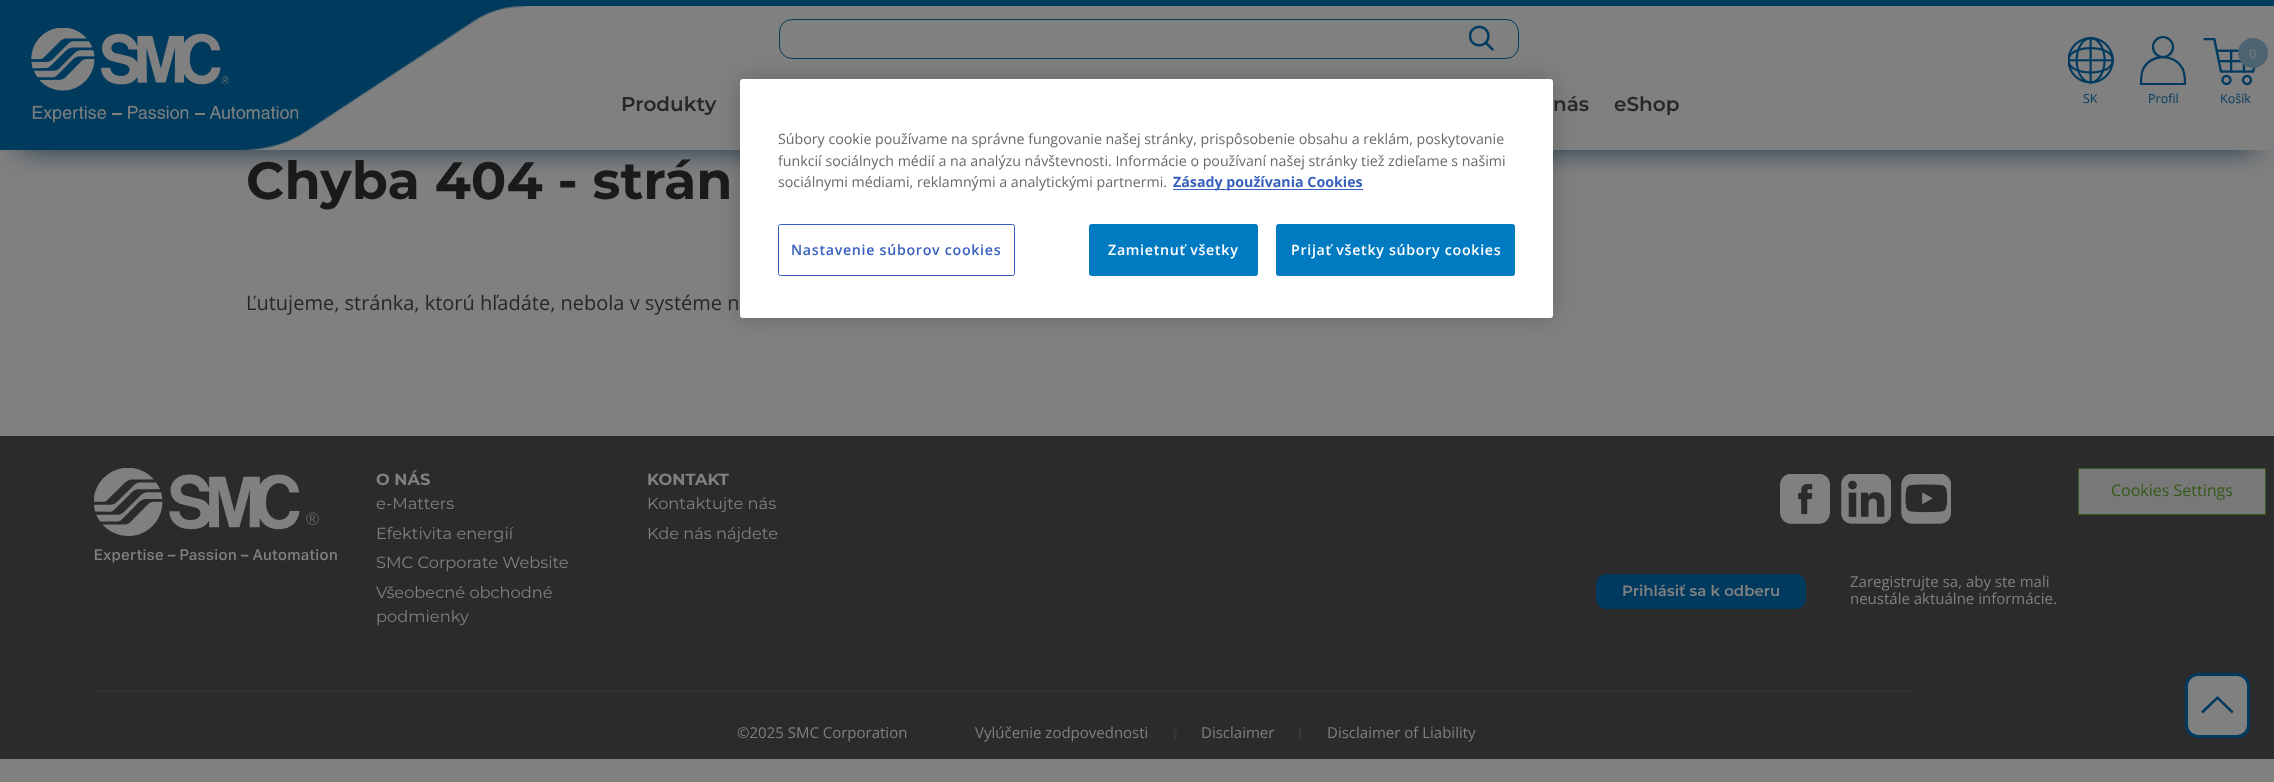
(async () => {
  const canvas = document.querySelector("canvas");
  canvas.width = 2274;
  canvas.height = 782;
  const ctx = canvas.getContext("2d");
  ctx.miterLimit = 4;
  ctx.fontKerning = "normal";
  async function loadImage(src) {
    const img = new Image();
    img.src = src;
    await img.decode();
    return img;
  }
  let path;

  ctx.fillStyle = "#808080";
  ctx.fillRect(0, 0, 2274, 782);
  ctx.save();
  ctx.beginPath();
  ctx.rect(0, 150, 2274, 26);
  ctx.clip();
  ctx.fillStyle = "rgba(0, 34, 56, 0.81)";
  ctx.filter = "blur(14px)";
  ctx.beginPath();
  ctx.rect(20, 39, 2235, 110);
  ctx.fill();
  ctx.filter = "none";
  ctx.restore();
  ctx.drawImage(await loadImage("img/1.png"), 0, 6, 526, 144);
  ctx.fillStyle = "#003a5f";
  ctx.fillRect(0, 0, 2274, 6);
  ctx.drawImage(await loadImage("img/2.png"), 31, 28, 268, 95);
  ctx.beginPath();
  ctx.roundRect(779.5, 19.5, 739, 39, 12.5);
  ctx.strokeStyle = "#003a5f";
  ctx.stroke();
  ctx.drawImage(await loadImage("img/3.png"), 1469, 25, 25, 26);
  ctx.drawImage(await loadImage("img/4.png"), 2068, 37, 46, 47);
  ctx.save();
  ctx.beginPath();
  ctx.rect(2140, 31, 46, 59);
  ctx.clip();
  path = new Path2D("M2185 84C2185 78.5 2185 73.5 2182.5 68.5C2174 52.5 2149.5 53.5 2142.5 70.5C2141 75 2141 79.5 2141 84Z");
  ctx.lineWidth = 2.2;
  ctx.lineCap = "round";
  ctx.lineJoin = "round";
  ctx.stroke(path);
  ctx.restore();
  ctx.beginPath();
  ctx.arc(2163, 47, 10, 0, Math.PI * 2);
  ctx.lineWidth = 2.2;
  ctx.stroke();
  ctx.drawImage(await loadImage("img/5.png"), 2203, 38, 65, 48);
  ctx.fillStyle = "rgba(0, 0, 0, 0.2)";
  ctx.filter = "blur(11px)";
  ctx.beginPath();
  ctx.roundRect(740, 79, 813, 239, 3);
  ctx.fill();
  ctx.filter = "none";
  ctx.fillStyle = "#ffffff";
  ctx.beginPath();
  ctx.roundRect(740, 79, 813, 239, 3);
  ctx.fill();
  ctx.fillStyle = "#3860be";
  ctx.fillRect(1173, 189, 190, 1);
  ctx.beginPath();
  ctx.roundRect(778.5, 224.5, 236, 51, 2);
  ctx.strokeStyle = "#3860be";
  ctx.lineWidth = 1;
  ctx.stroke();
  ctx.fillStyle = "#007bc2";
  ctx.beginPath();
  ctx.roundRect(1089.5, 224.5, 168, 51, 2);
  ctx.fill();
  ctx.strokeStyle = "#007bc2";
  ctx.stroke();
  ctx.beginPath();
  ctx.roundRect(1276.5, 224.5, 238, 51, 2);
  ctx.fill();
  ctx.stroke();
  ctx.fillStyle = "#2b2b2b";
  ctx.fillRect(0, 436, 2274, 323);
  ctx.drawImage(await loadImage("img/6.png"), 94, 468, 243, 95);
  ctx.fillStyle = "#313131";
  ctx.fillRect(94, 690, 1820, 3);
  ctx.fillStyle = "#787878";
  ctx.beginPath();
  ctx.rect(2078.5, 468.5, 187, 46);
  ctx.fill();
  ctx.strokeStyle = "#345b19";
  ctx.stroke();
  ctx.drawImage(await loadImage("img/7.png"), 1780, 474, 50, 50);
  ctx.drawImage(await loadImage("img/8.png"), 1841, 474, 50, 50);
  ctx.drawImage(await loadImage("img/9.png"), 1901, 474, 50, 50);
  ctx.fillStyle = "#003a5f";
  ctx.beginPath();
  ctx.roundRect(1596, 574, 210, 35, 10);
  ctx.fill();
  for (const [x, y, w, h, color] of [
    [1175, 729, 2, 10, "#313131"],
    [1174, 729, 1, 10, "#3a4246"],
    [1300, 729, 2, 10, "#313131"],
    [1299, 729, 1, 10, "#3a4246"],
  ]) {
    ctx.fillStyle = color;
    ctx.fillRect(x, y, w, h);
  }
  ctx.fillStyle = "#808080";
  ctx.beginPath();
  ctx.roundRect(2186.5, 674.5, 62, 62, 11.5);
  ctx.fill();
  ctx.strokeStyle = "#003a5f";
  ctx.lineWidth = 3;
  ctx.stroke();
  ctx.fillStyle = "#003a5f";
  path = new Path2D("M2232 713.5L2217.5 699.5L2203 713.5L2201 711.5L2217.5 696L2233.5 711.5Z");
  ctx.fill(path);
  ctx.font = "600 20px Montserrat";
  ctx.fillStyle = "#272727";
  for (const [text, x, y] of [
    ["Produkty", 621, 111],
    ["nás", 1553, 111],
    ["eShop", 1614, 111],
  ]) {
    ctx.fillText(text, x, y);
  }
  ctx.font = "12.5px Open Sans";
  ctx.fillStyle = "#003a5f";
  ctx.fillText("SK", 2083, 103);
  ctx.fillText("Profil", 2148, 103);
  ctx.fillStyle = "#808080";
  ctx.fillText("0", 2249, 58);
  ctx.fillStyle = "#003a5f";
  ctx.fillText("Košík", 2220, 103);
  ctx.font = "bold 52.5px Montserrat";
  ctx.fillStyle = "#1a1a1a";
  ctx.fillText("Chyba 404 - strán", 246, 199);
  ctx.font = "20px Open Sans";
  ctx.fillStyle = "#272727";
  ctx.fillText("Ľutujeme, stránka, ktorú hľadáte, nebola v systéme n", 246, 310);
  ctx.font = "14.23px Open Sans";
  ctx.fillStyle = "#696969";
  for (const [text, x, y] of [
    ["Súbory cookie používame na správne fungovanie našej stránky, prispôsobenie obsahu a reklám, poskytovanie", 778, 144],
    ["funkcií sociálnych médií a na analýzu návštevnosti. Informácie o používaní našej stránky tiež zdieľame s našimi", 778, 166],
    ["sociálnymi médiami, reklamnými a analytickými partnermi.", 778, 187],
  ]) {
    ctx.fillText(text, x, y);
  }
  ctx.font = "bold 14.23px Open Sans";
  ctx.fillStyle = "#3860be";
  ctx.fillText("Zásady používania Cookies", 1173, 187);
  ctx.letterSpacing = "0.7px";
  ctx.font = "600 14.23px Open Sans";
  ctx.fillText("Nastavenie súborov cookies", 791, 255);
  ctx.fillStyle = "#ffffff";
  ctx.fillText("Zamietnuť všetky", 1108, 255);
  ctx.fillText("Prijať všetky súbory cookies", 1291, 255);
  ctx.letterSpacing = "0px";
  ctx.font = "bold 16.25px Montserrat";
  ctx.fillStyle = "#808080";
  ctx.fillText("O NÁS", 376, 485);
  ctx.font = "16.25px Montserrat";
  for (const [text, x, y] of [
    ["e-Matters", 376, 509],
    ["Efektivita energií", 376, 539],
    ["SMC Corporate Website", 376, 568],
    ["Všeobecné obchodné", 376, 598],
    ["podmienky", 376, 622],
  ]) {
    ctx.fillText(text, x, y);
  }
  ctx.font = "bold 16.25px Montserrat";
  ctx.fillText("KONTAKT", 647, 485);
  ctx.font = "16.25px Montserrat";
  ctx.fillText("Kontaktujte nás", 647, 509);
  ctx.fillText("Kde nás nájdete", 647, 539);
  ctx.font = "16px Open Sans";
  ctx.fillStyle = "#345b19";
  ctx.fillText("Cookies Settings", 2111, 496);
  ctx.font = "600 15px Montserrat";
  ctx.fillStyle = "#808080";
  ctx.fillText("Prihlásiť sa k odberu", 1622, 596);
  ctx.font = "15px Open Sans";
  for (const [text, x, y] of [
    ["Zaregistrujte sa, aby ste mali", 1850, 587],
    ["neustále aktuálne informácie.", 1850, 604],
    ["©2025 SMC Corporation", 737, 738],
    ["Vylúčenie zodpovednosti", 975, 738],
    ["Disclaimer", 1201, 738],
    ["Disclaimer of Liability", 1327, 738],
  ]) {
    ctx.fillText(text, x, y);
  }
})();
